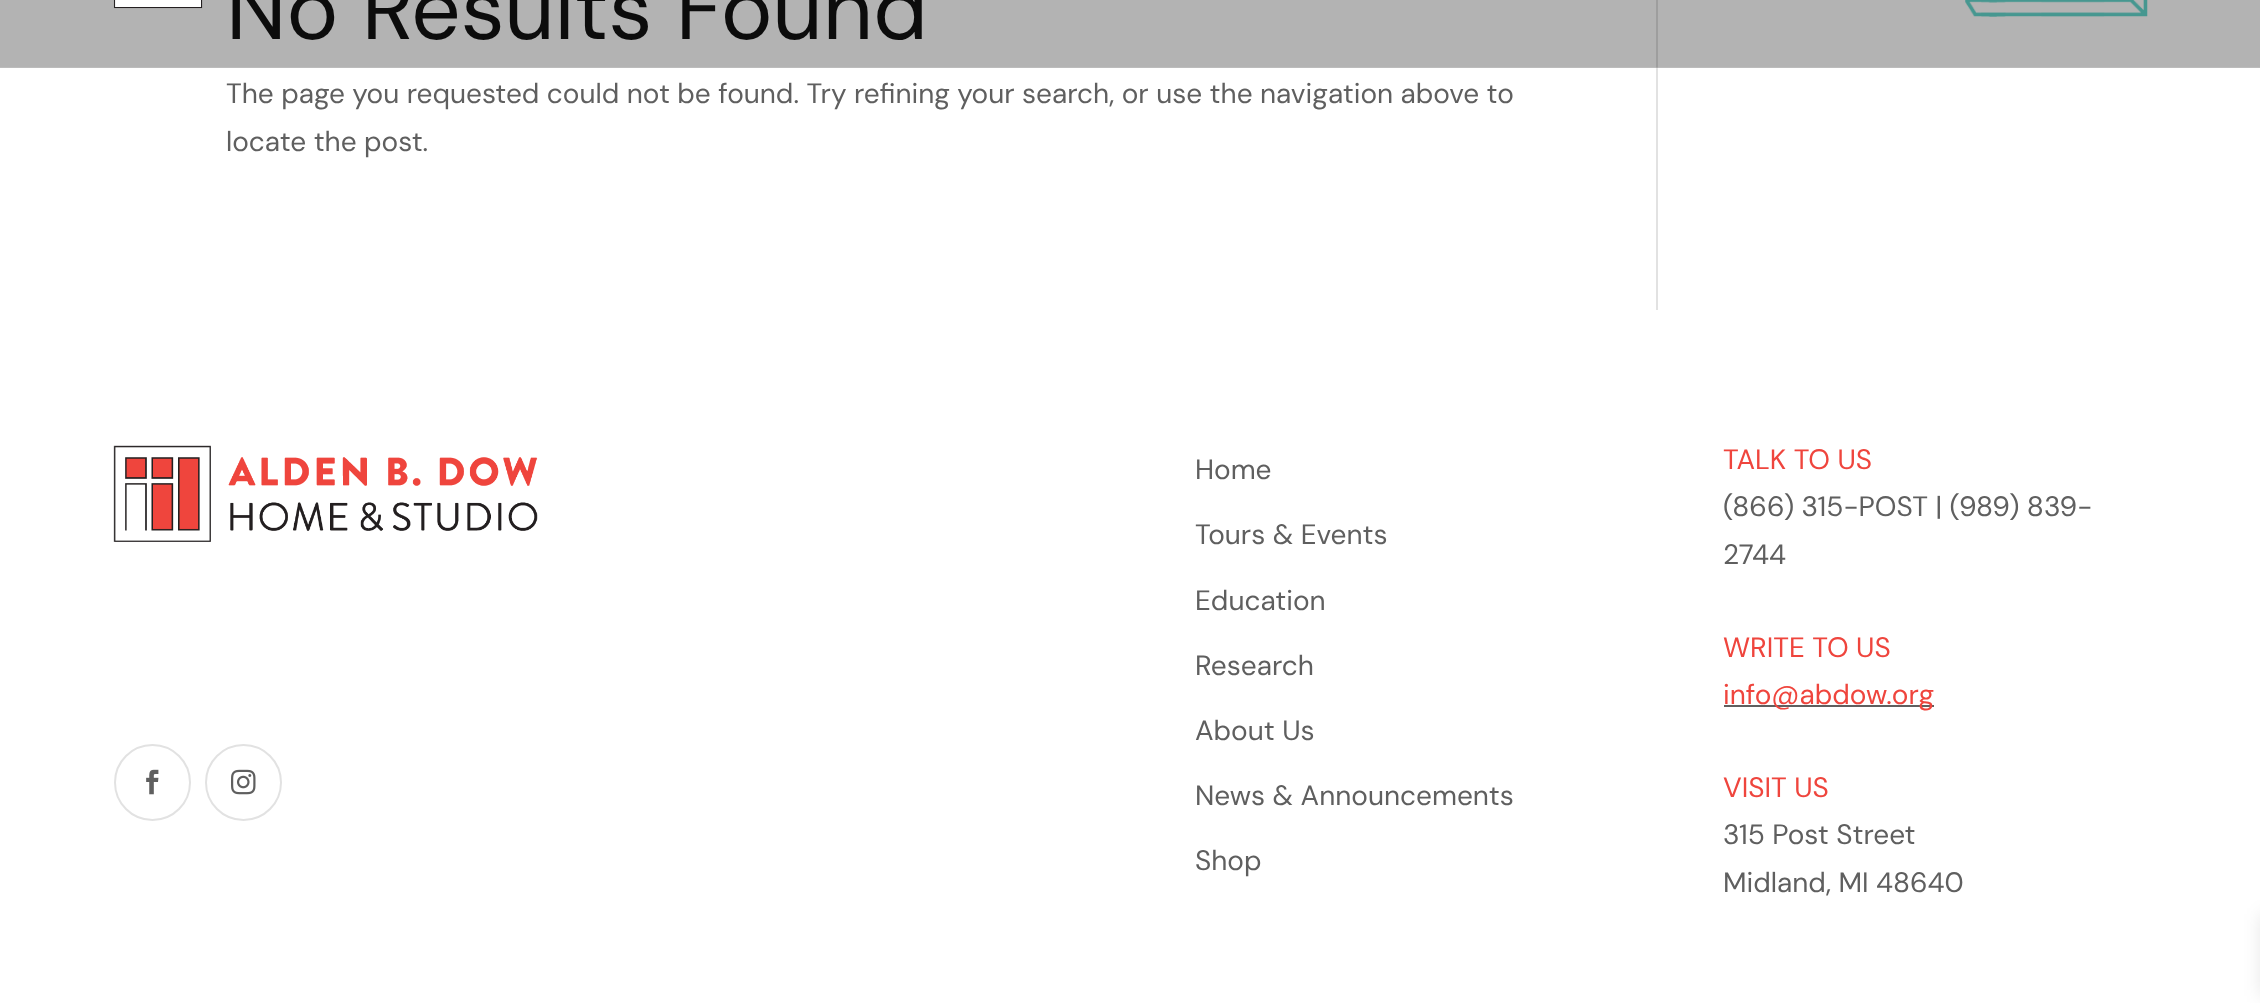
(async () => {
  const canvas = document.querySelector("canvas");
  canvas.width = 2260;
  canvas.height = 1003;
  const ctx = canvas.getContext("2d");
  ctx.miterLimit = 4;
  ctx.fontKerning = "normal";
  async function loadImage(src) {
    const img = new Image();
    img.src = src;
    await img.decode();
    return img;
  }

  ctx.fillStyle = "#ffffff";
  ctx.fillRect(0, 0, 2260, 1003);
  ctx.fillStyle = "#b3b3b3";
  ctx.fillRect(0, 0, 2260, 67);
  ctx.fillStyle = "#bcbcbc";
  ctx.fillRect(0, 67, 2260, 1);
  ctx.drawImage(await loadImage("img/1.png"), 113, 0, 90, 9);
  ctx.drawImage(await loadImage("img/2.png"), 1965, 0, 183, 17);
  for (const [x, y, w, h, color] of [
    [1656, 69, 2, 241, "#e2e2e2"],
    [1656, 68, 2, 1, "#e5e5e5"],
    [1656, 0, 2, 68, "#9e9e9e"],
    [1656, 67, 2, 1, "#aaaaaa"],
  ]) {
    ctx.fillStyle = color;
    ctx.fillRect(x, y, w, h);
  }
  ctx.drawImage(await loadImage("img/3.png"), 113, 445, 425, 97);
  ctx.beginPath();
  ctx.arc(152.5, 782.5, 37.5, 0, Math.PI * 2);
  ctx.strokeStyle = "#e2e2e2";
  ctx.lineWidth = 2;
  ctx.stroke();
  ctx.drawImage(await loadImage("img/4.png"), 146, 769, 13, 26);
  ctx.beginPath();
  ctx.arc(243.5, 782.5, 37.5, 0, Math.PI * 2);
  ctx.stroke();
  ctx.drawImage(await loadImage("img/5.png"), 231, 769, 25, 26);
  ctx.fillStyle = "#5f5f5f";
  ctx.fillRect(1724, 705, 210, 2);
  ctx.fillStyle = "rgba(0, 0, 0, 0.1)";
  ctx.filter = "blur(9px)";
  ctx.beginPath();
  ctx.rect(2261, 914, 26, 82);
  ctx.fill();
  ctx.filter = "none";
  ctx.font = "87.5px DM Sans";
  ctx.fillStyle = "#0c0c0c";
  ctx.fillText("No Results Found", 226, 39);
  ctx.font = "28px DM Sans";
  ctx.fillStyle = "#5f5f5f";
  for (const [text, x, y] of [
    ["The page you requested could not be found. Try refining your search, or use the navigation above to", 226, 103],
    ["locate the post.", 226, 151],
    ["Home", 1195, 479],
    ["Tours & Events", 1195, 544],
    ["Education", 1195, 610],
    ["Research", 1195, 675],
    ["About Us", 1195, 740],
    ["News & Announcements", 1195, 805],
    ["Shop", 1195, 870],
  ]) {
    ctx.fillText(text, x, y);
  }
  ctx.fillStyle = "#ef453d";
  ctx.fillText("TALK TO US", 1723, 469);
  ctx.fillStyle = "#5f5f5f";
  ctx.fillText("(866) 315-POST | (989) 839-", 1723, 516);
  ctx.fillText("2744", 1723, 564);
  ctx.fillStyle = "#ef453d";
  for (const [text, x, y] of [
    ["WRITE TO US", 1723, 657],
    ["info@abdow.org", 1723, 704],
    ["VISIT US", 1723, 797],
  ]) {
    ctx.fillText(text, x, y);
  }
  ctx.fillStyle = "#5f5f5f";
  ctx.fillText("315 Post Street", 1723, 844);
  ctx.fillText("Midland, MI 48640", 1723, 892);
})();
